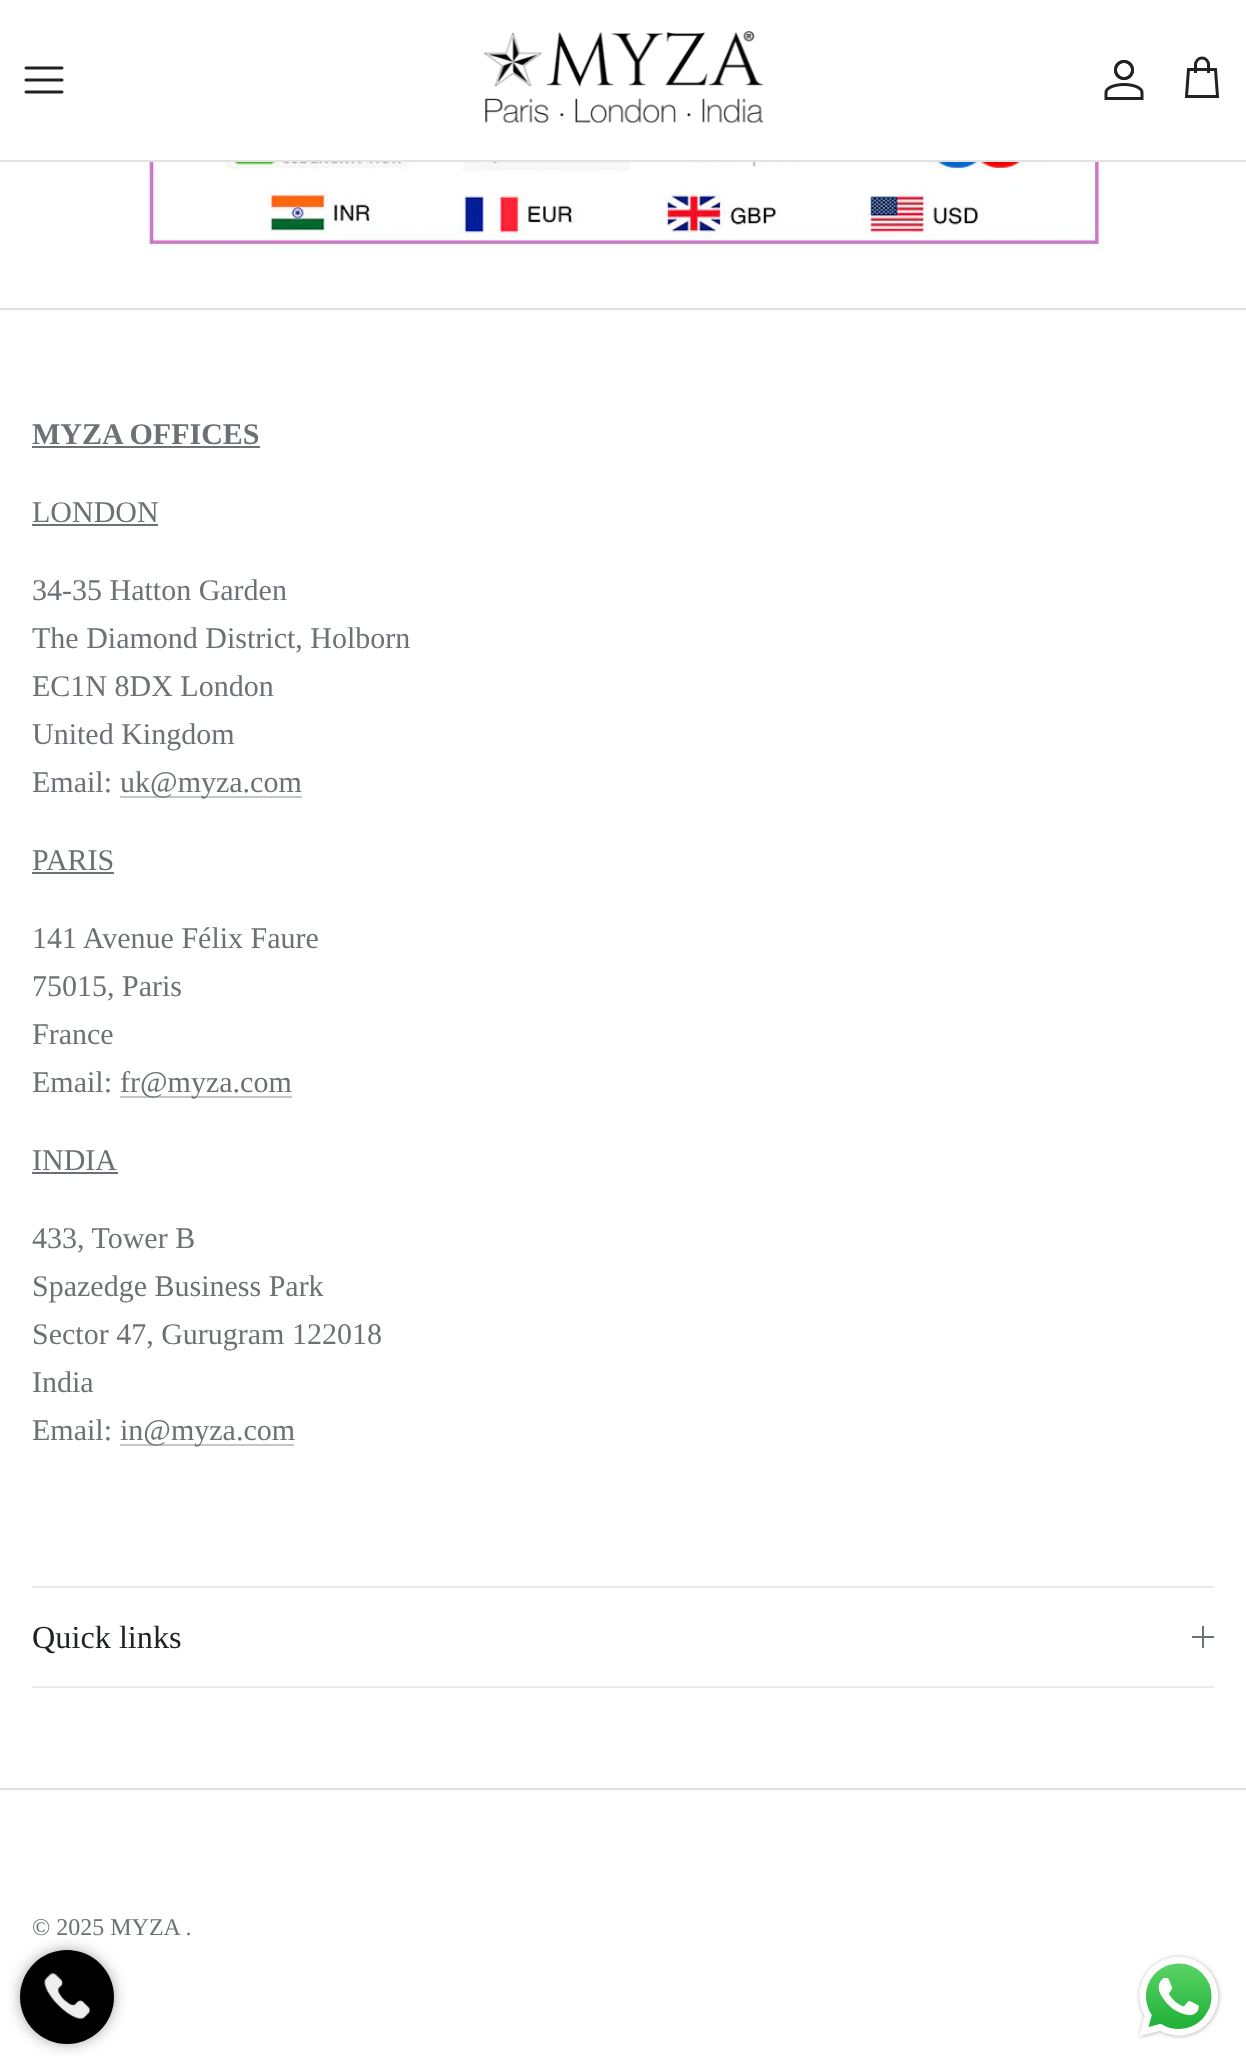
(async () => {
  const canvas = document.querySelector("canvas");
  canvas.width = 1246;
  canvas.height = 2064;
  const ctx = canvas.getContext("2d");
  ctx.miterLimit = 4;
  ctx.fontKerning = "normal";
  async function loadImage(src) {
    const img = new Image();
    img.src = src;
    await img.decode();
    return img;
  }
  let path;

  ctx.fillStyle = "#ffffff";
  ctx.fillRect(0, 0, 1246, 2064);
  ctx.fillStyle = "#e2e2e2";
  ctx.fillRect(0, 160, 1246, 2);
  path = new Path2D("M26 80H62M26 68H62M26 92H62");
  ctx.strokeStyle = "#202223";
  ctx.lineWidth = 3;
  ctx.lineCap = "round";
  ctx.lineJoin = "round";
  ctx.stroke(path);
  ctx.drawImage(await loadImage("img/1.png"), 484, 31, 280, 93);
  ctx.drawImage(await loadImage("img/2.png"), 1104, 60, 40, 40);
  path = new Path2D("M1208.5 73V64.5C1208.5 61 1205.5 58 1202 58C1198.5 58 1195.5 61 1195.5 64.5V73M1188.5 69.5H1215.5L1217.5 96.5H1186.5Z");
  ctx.lineCap = "butt";
  ctx.lineJoin = "miter";
  ctx.stroke(path);
  ctx.drawImage(await loadImage("img/3.png"), 143, 162, 961, 91);
  for (const [x, y, w, h, color] of [
    [0, 308, 1246, 2, "#e0e0e0"],
    [32, 446, 228, 2, "#6d7175"],
    [32, 524, 126, 2, "#6d7175"],
    [120, 796, 182, 2, "#c5c6c8"],
    [32, 872, 82, 2, "#6d7175"],
    [120, 1096, 172, 2, "#c5c6c8"],
    [32, 1172, 86, 2, "#6d7175"],
    [120, 1444, 174, 2, "#c5c6c8"],
    [32, 1586, 1182, 2, "#e9eaea"],
    [32, 1686, 1182, 2, "#e9eaea"],
    [1202, 1626, 2, 22, "#6d7175"],
    [1192, 1636, 22, 2, "#6d7175"],
    [0, 1788, 1246, 2, "#e0e0e0"],
  ]) {
    ctx.fillStyle = color;
    ctx.fillRect(x, y, w, h);
  }
  ctx.fillStyle = "#000000";
  ctx.filter = "blur(10px)";
  ctx.beginPath();
  ctx.roundRect(28, 1958, 78, 78, 39);
  ctx.fill();
  ctx.filter = "none";
  ctx.beginPath();
  ctx.arc(67, 1997, 47, 0, Math.PI * 2);
  ctx.fill();
  ctx.drawImage(await loadImage("img/4.png"), 44, 1972, 47, 48);
  ctx.drawImage(await loadImage("img/5.png"), 1136, 1954, 86, 85);
  ctx.font = "bold 30px Liberation Serif";
  ctx.fillStyle = "#6d7175";
  ctx.fillText("MYZA OFFICES", 32, 444);
  ctx.font = "30px Liberation Serif";
  for (const [text, x, y] of [
    ["LONDON", 32, 522],
    ["34-35 Hatton Garden", 32, 600],
    ["The Diamond District, Holborn", 32, 648],
    ["EC1N 8DX London", 32, 696],
    ["United Kingdom", 32, 744],
    ["Email:", 32, 792],
    ["uk@myza.com", 120, 792],
    ["PARIS", 32, 870],
    ["141 Avenue Félix Faure", 32, 948],
    ["75015, Paris", 32, 996],
    ["France", 32, 1044],
    ["Email:", 32, 1092],
    ["fr@myza.com", 120, 1092],
    ["INDIA", 32, 1170],
    ["433, Tower B", 32, 1248],
    ["Spazedge Business Park", 32, 1296],
    ["Sector 47, Gurugram 122018", 32, 1344],
    ["India", 32, 1392],
    ["Email:", 32, 1440],
    ["in@myza.com", 120, 1440],
  ]) {
    ctx.fillText(text, x, y);
  }
  ctx.font = "32.25px Liberation Serif";
  ctx.fillStyle = "#202223";
  ctx.fillText("Quick links", 32, 1648);
  ctx.font = "24px Liberation Serif";
  ctx.fillStyle = "#6d7175";
  ctx.fillText("© 2025 MYZA .", 32, 1935);
})();
